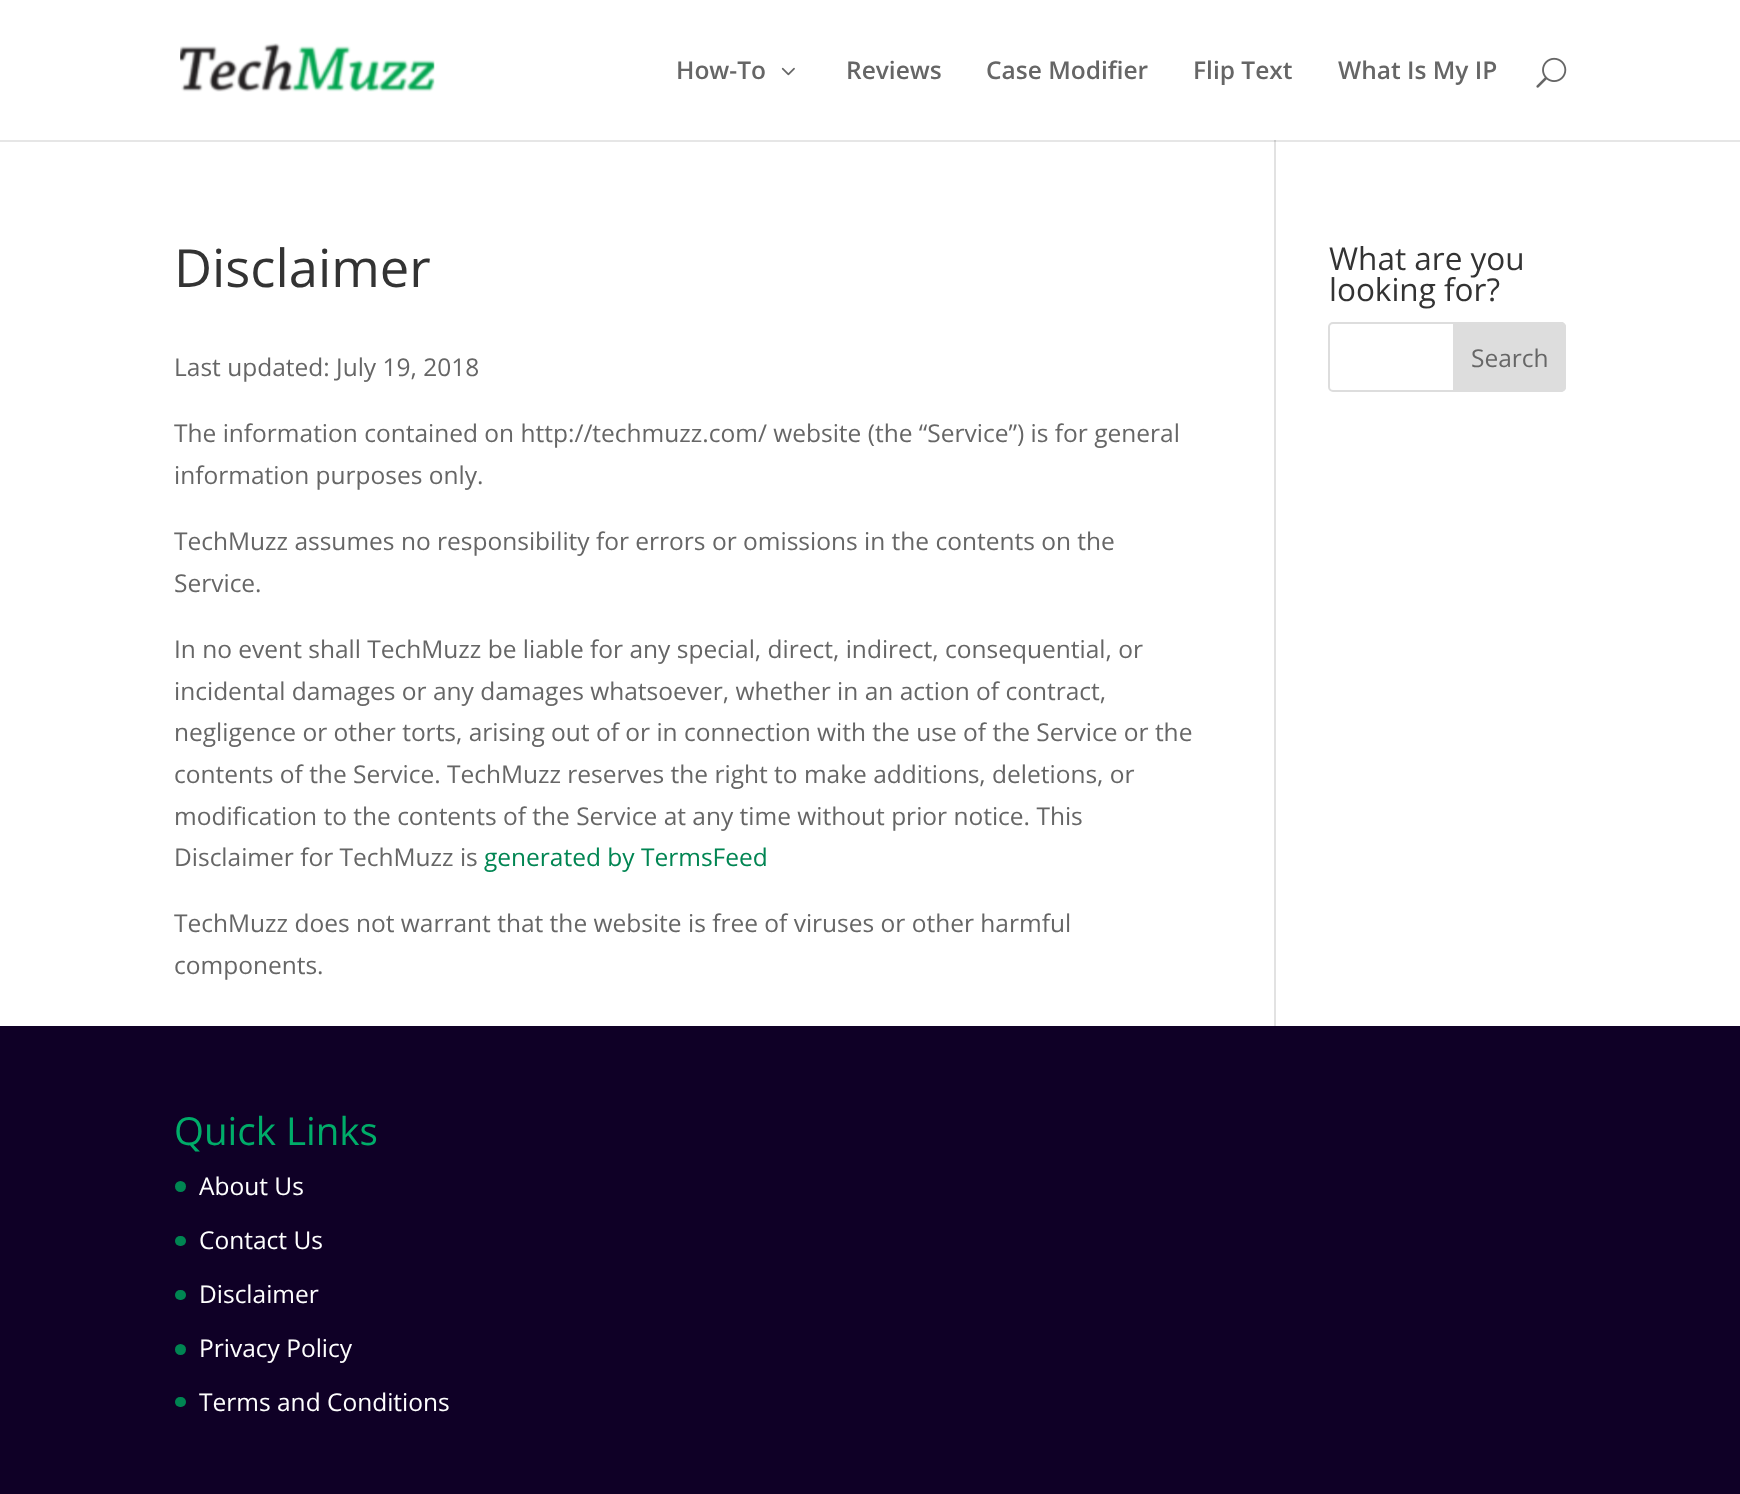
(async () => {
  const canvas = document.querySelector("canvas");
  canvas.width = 1740;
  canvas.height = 1494;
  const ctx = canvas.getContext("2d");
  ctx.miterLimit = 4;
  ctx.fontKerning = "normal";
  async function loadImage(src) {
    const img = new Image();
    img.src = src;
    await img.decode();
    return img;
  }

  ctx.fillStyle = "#ffffff";
  ctx.fillRect(0, 0, 1740, 1494);
  ctx.fillStyle = "#e6e6e6";
  ctx.fillRect(0, 140, 1740, 2);
  ctx.drawImage(await loadImage("img/1.png"), 180, 43, 255, 49);
  ctx.drawImage(await loadImage("img/2.png"), 781, 67, 14, 9);
  ctx.drawImage(await loadImage("img/3.png"), 1536, 57, 31, 31);
  ctx.fillStyle = "#e2e2e2";
  ctx.fillRect(1274, 140, 2, 886);
  ctx.fillStyle = "#cbcbcb";
  ctx.fillRect(1274, 140, 2, 2);
  ctx.beginPath();
  ctx.roundRect(1329, 323, 236, 68, 4);
  ctx.strokeStyle = "#dddddd";
  ctx.lineWidth = 2;
  ctx.stroke();
  ctx.fillStyle = "#dddddd";
  ctx.beginPath();
  ctx.roundRect(1454, 323, 111, 68, [0, 4, 4, 0]);
  ctx.fill();
  ctx.stroke();
  ctx.fillStyle = "#0f0026";
  ctx.fillRect(0, 1026, 1740, 468);
  ctx.fillStyle = "#008552";
  ctx.beginPath();
  ctx.arc(180.5, 1186.5, 5.5, 0, Math.PI * 2);
  ctx.fill();
  ctx.beginPath();
  ctx.roundRect(175, 1236, 11, 10, 5);
  ctx.fill();
  ctx.beginPath();
  ctx.roundRect(175, 1290, 11, 10, 5);
  ctx.fill();
  ctx.beginPath();
  ctx.arc(180.5, 1349.5, 5.5, 0, Math.PI * 2);
  ctx.fill();
  ctx.beginPath();
  ctx.roundRect(175, 1397, 11, 10, 5);
  ctx.fill();
  ctx.font = "600 24.5px Open Sans";
  ctx.fillStyle = "#666666";
  for (const [text, x, y] of [
    ["How-To", 676, 79],
    ["Reviews", 846, 79],
    ["Case Modifier", 986, 79],
    ["Flip Text", 1193, 79],
    ["What Is My IP", 1338, 79],
  ]) {
    ctx.fillText(text, x, y);
  }
  ctx.font = "52.5px Open Sans";
  ctx.fillStyle = "#333333";
  ctx.fillText("Disclaimer", 174, 287);
  ctx.font = "24.5px Open Sans";
  ctx.fillStyle = "#666666";
  for (const [text, x, y] of [
    ["Last updated: July 19, 2018", 174, 376],
    ["The information contained on http://techmuzz.com/ website (the “Service”) is for general", 174, 442],
    ["information purposes only.", 174, 484],
    ["TechMuzz assumes no responsibility for errors or omissions in the contents on the", 174, 550],
    ["Service.", 174, 592],
    ["In no event shall TechMuzz be liable for any special, direct, indirect, consequential, or", 174, 658],
    ["incidental damages or any damages whatsoever, whether in an action of contract,", 174, 700],
    ["negligence or other torts, arising out of or in connection with the use of the Service or the", 174, 741],
    ["contents of the Service. TechMuzz reserves the right to make additions, deletions, or", 174, 783],
    ["modification to the contents of the Service at any time without prior notice. This", 174, 825],
    ["Disclaimer for TechMuzz is", 174, 866],
  ]) {
    ctx.fillText(text, x, y);
  }
  ctx.fillStyle = "#008552";
  ctx.fillText("generated by TermsFeed", 484, 866);
  ctx.fillStyle = "#666666";
  ctx.fillText("TechMuzz does not warrant that the website is free of viruses or other harmful", 174, 932);
  ctx.fillText("components.", 174, 974);
  ctx.font = "31.5px Open Sans";
  ctx.fillStyle = "#333333";
  ctx.fillText("What are you", 1329, 270);
  ctx.fillText("looking for?", 1329, 301);
  ctx.font = "24.5px Open Sans";
  ctx.fillStyle = "#666666";
  ctx.fillText("Search", 1471, 367);
  ctx.font = "38.5px Open Sans";
  ctx.fillStyle = "#00ac69";
  ctx.fillText("Quick Links", 174, 1145);
  ctx.font = "24.5px Open Sans";
  ctx.fillStyle = "#ffffff";
  for (const [text, x, y] of [
    ["About Us", 199, 1195],
    ["Contact Us", 199, 1249],
    ["Disclaimer", 199, 1303],
    ["Privacy Policy", 199, 1357],
    ["Terms and Conditions", 199, 1411],
  ]) {
    ctx.fillText(text, x, y);
  }
})();
